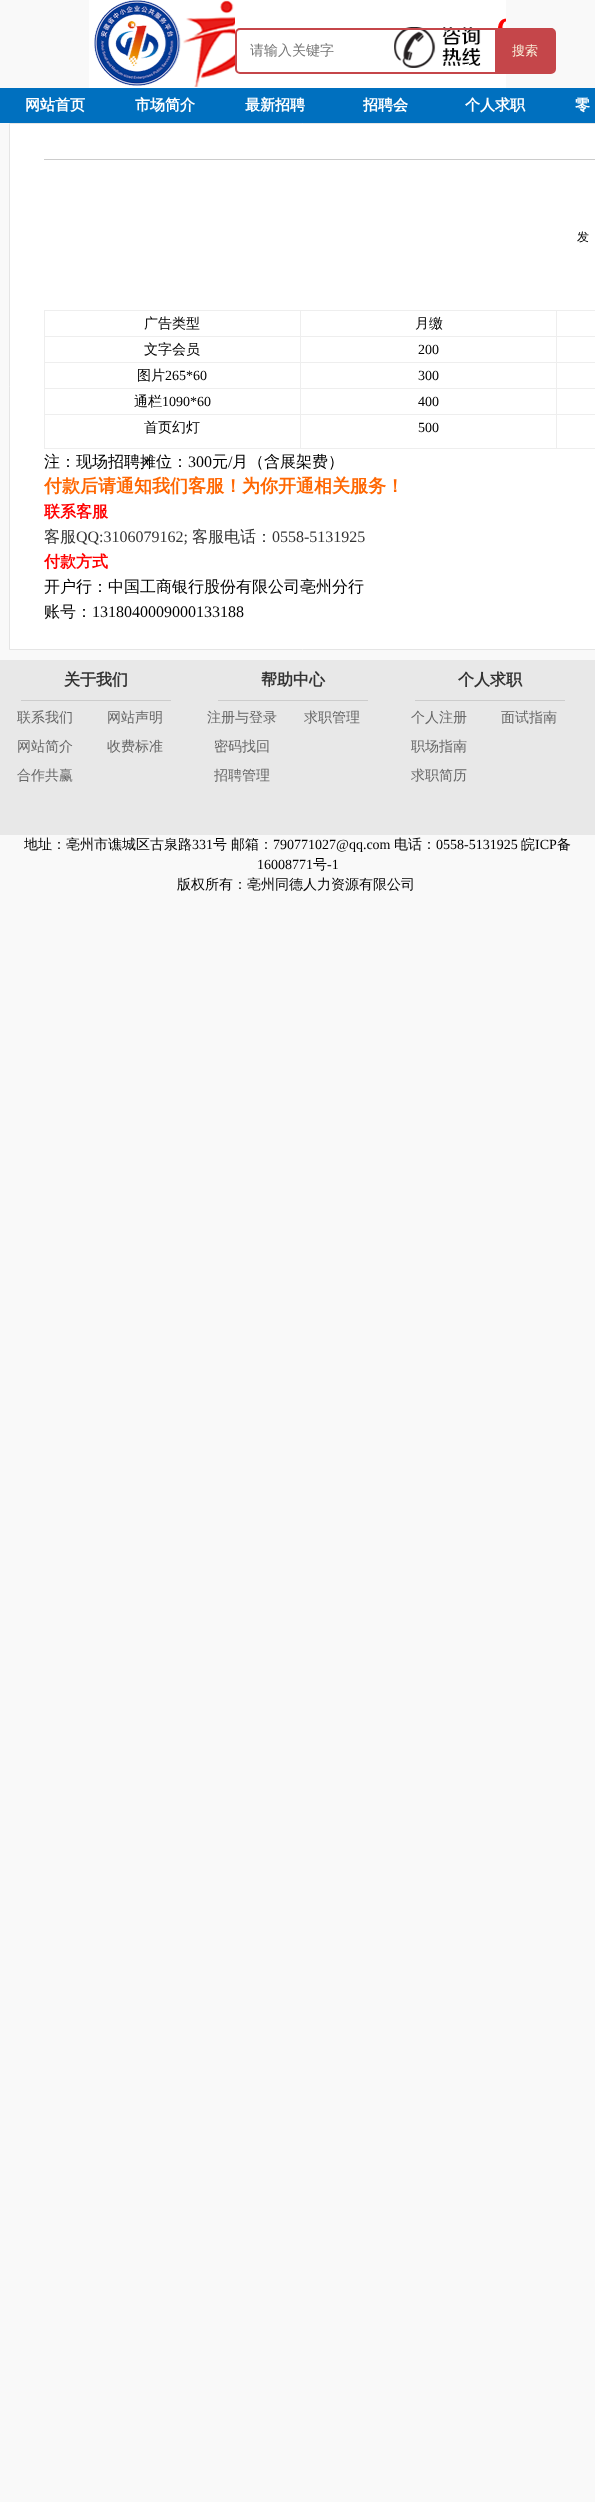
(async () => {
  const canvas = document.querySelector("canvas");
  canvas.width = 595;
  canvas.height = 2502;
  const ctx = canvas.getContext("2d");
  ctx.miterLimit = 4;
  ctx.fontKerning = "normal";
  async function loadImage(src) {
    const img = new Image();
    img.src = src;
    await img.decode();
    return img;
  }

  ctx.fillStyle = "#f9f9f9";
  ctx.fillRect(0, 0, 595, 2502);
  ctx.fillStyle = "#ffffff";
  ctx.fillRect(89, 0, 417, 88);
  ctx.drawImage(await loadImage("img/1.png"), 94, 0, 141, 87);
  ctx.drawImage(await loadImage("img/2.png"), 394, 18, 112, 50);
  ctx.beginPath();
  ctx.roundRect(236, 29, 319, 44, 4);
  ctx.strokeStyle = "#c5464a";
  ctx.lineWidth = 2;
  ctx.stroke();
  ctx.fillStyle = "#c5464a";
  ctx.beginPath();
  ctx.roundRect(495, 28, 60, 45, [0, 5, 5, 0]);
  ctx.fill();
  ctx.fillStyle = "#0070bf";
  ctx.fillRect(0, 88, 595, 35);
  ctx.fillStyle = "#ffffff";
  ctx.beginPath();
  ctx.rect(9.5, 123.5, 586, 526);
  ctx.fill();
  ctx.strokeStyle = "#e5e5e5";
  ctx.lineWidth = 1;
  ctx.stroke();
  for (const [x, y, w, h, color] of [
    [44, 159, 551, 1, "#cccccc"],
    [556, 310, 39, 1, "#eeeeee"],
    [556, 336, 39, 1, "#eeeeee"],
    [556, 362, 39, 1, "#eeeeee"],
    [556, 388, 39, 1, "#eeeeee"],
    [556, 414, 39, 1, "#eeeeee"],
    [556, 448, 39, 1, "#eeeeee"],
    [556, 414, 1, 35, "#eeeeee"],
    [300, 414, 257, 1, "#eeeeee"],
    [556, 388, 1, 27, "#eeeeee"],
    [300, 388, 257, 1, "#eeeeee"],
    [556, 362, 1, 27, "#eeeeee"],
    [300, 362, 257, 1, "#eeeeee"],
    [556, 336, 1, 27, "#eeeeee"],
    [300, 336, 257, 1, "#eeeeee"],
    [556, 310, 1, 27, "#eeeeee"],
    [300, 310, 257, 1, "#eeeeee"],
    [300, 448, 257, 1, "#eeeeee"],
    [300, 414, 1, 35, "#eeeeee"],
    [44, 414, 257, 1, "#eeeeee"],
    [300, 388, 1, 27, "#eeeeee"],
    [44, 388, 257, 1, "#eeeeee"],
    [300, 362, 1, 27, "#eeeeee"],
    [44, 362, 257, 1, "#eeeeee"],
    [300, 336, 1, 27, "#eeeeee"],
    [44, 336, 257, 1, "#eeeeee"],
    [300, 310, 1, 27, "#eeeeee"],
    [44, 310, 257, 1, "#eeeeee"],
    [44, 448, 257, 1, "#eeeeee"],
    [44, 414, 1, 35, "#eeeeee"],
    [44, 388, 1, 27, "#eeeeee"],
    [44, 362, 1, 27, "#eeeeee"],
    [44, 336, 1, 27, "#eeeeee"],
    [44, 310, 1, 27, "#eeeeee"],
    [0, 660, 595, 175, "#e8e8e8"],
    [21, 700, 150, 1, "#cccccc"],
    [218, 700, 150, 1, "#cccccc"],
    [415, 700, 150, 1, "#cccccc"],
  ]) {
    ctx.fillStyle = color;
    ctx.fillRect(x, y, w, h);
  }
  ctx.font = "500 14px WenQuanYi Zen Hei";
  ctx.fillStyle = "#757575";
  ctx.fillText("请输入关键字", 250, 55);
  ctx.font = "500 13px WenQuanYi Zen Hei";
  ctx.fillStyle = "#f9f0da";
  ctx.fillText("搜索", 512, 55);
  ctx.font = "bold 15px WenQuanYi Zen Hei";
  ctx.fillStyle = "#ffffff";
  for (const [text, x, y] of [
    ["网站首页", 25, 110],
    ["市场简介", 135, 110],
    ["最新招聘", 245, 110],
    ["招聘会", 363, 110],
    ["个人求职", 465, 110],
    ["零", 575, 110],
  ]) {
    ctx.fillText(text, x, y);
  }
  ctx.font = "500 12px WenQuanYi Zen Hei";
  ctx.fillStyle = "#000000";
  ctx.fillText("发", 577, 241);
  ctx.font = "500 14px WenQuanYi Zen Hei";
  for (const [text, x, y] of [
    ["广告类型", 144, 328],
    ["月缴", 415, 328],
    ["文字会员", 144, 354],
  ]) {
    ctx.fillText(text, x, y);
  }
  ctx.font = "14px Liberation Serif";
  ctx.fillText("200", 418, 354);
  ctx.font = "500 14px WenQuanYi Zen Hei";
  ctx.fillText("图片", 137, 380);
  ctx.font = "14px Liberation Serif";
  ctx.fillText("265*60", 165, 380);
  ctx.fillText("300", 418, 380);
  ctx.font = "500 14px WenQuanYi Zen Hei";
  ctx.fillText("通栏", 134, 406);
  ctx.font = "14px Liberation Serif";
  ctx.fillText("1090*60", 162, 406);
  ctx.fillText("400", 418, 406);
  ctx.font = "500 14px WenQuanYi Zen Hei";
  ctx.fillText("首页幻灯", 144, 432);
  ctx.font = "14px Liberation Serif";
  ctx.fillText("500", 418, 432);
  ctx.font = "500 16px WenQuanYi Zen Hei";
  ctx.fillText("注：现场招聘摊位：", 44, 467);
  ctx.font = "16px Liberation Serif";
  ctx.fillText("300", 188, 467);
  ctx.font = "500 16px WenQuanYi Zen Hei";
  ctx.fillText("元", 212, 467);
  ctx.font = "16px Liberation Serif";
  ctx.fillText("/", 228, 467);
  ctx.font = "500 16px WenQuanYi Zen Hei";
  ctx.fillText("月（含展架费）", 232, 467);
  ctx.font = "bold 18px WenQuanYi Zen Hei";
  ctx.fillStyle = "#ff6600";
  ctx.fillText("付款后请通知我们客服！为你开通相关服务！", 44, 492);
  ctx.font = "bold 16px WenQuanYi Zen Hei";
  ctx.fillStyle = "#ff0000";
  ctx.fillText("联系客服", 44, 517);
  ctx.font = "500 16px WenQuanYi Zen Hei";
  ctx.fillStyle = "#333333";
  ctx.fillText("客服", 44, 542);
  ctx.font = "16px Liberation Serif";
  ctx.fillText("QQ:3106079162;", 76, 542);
  ctx.font = "500 16px WenQuanYi Zen Hei";
  ctx.fillText("客服电话：", 192, 542);
  ctx.font = "16px Liberation Serif";
  ctx.fillText("0558-5131925", 272, 542);
  ctx.font = "bold 16px WenQuanYi Zen Hei";
  ctx.fillStyle = "#ff0000";
  ctx.fillText("付款方式", 44, 567);
  ctx.font = "500 16px WenQuanYi Zen Hei";
  ctx.fillStyle = "#000000";
  ctx.fillText("开户行：中国工商银行股份有限公司亳州分行", 44, 592);
  ctx.fillText("账号：", 44, 617);
  ctx.font = "16px Liberation Serif";
  ctx.fillText("1318040009000133188", 92, 617);
  ctx.font = "bold 16px WenQuanYi Zen Hei";
  ctx.fillStyle = "#333333";
  ctx.fillText("关于我们", 64, 685);
  ctx.font = "500 14px WenQuanYi Zen Hei";
  ctx.fillStyle = "#666666";
  for (const [text, x, y] of [
    ["联系我们", 17, 722],
    ["网站简介", 17, 751],
    ["合作共赢", 17, 780],
    ["网站声明", 107, 722],
    ["收费标准", 107, 751],
  ]) {
    ctx.fillText(text, x, y);
  }
  ctx.font = "bold 16px WenQuanYi Zen Hei";
  ctx.fillStyle = "#333333";
  ctx.fillText("帮助中心", 261, 685);
  ctx.font = "500 14px WenQuanYi Zen Hei";
  ctx.fillStyle = "#666666";
  for (const [text, x, y] of [
    ["注册与登录", 207, 722],
    ["密码找回", 214, 751],
    ["招聘管理", 214, 780],
    ["求职管理", 304, 722],
  ]) {
    ctx.fillText(text, x, y);
  }
  ctx.font = "bold 16px WenQuanYi Zen Hei";
  ctx.fillStyle = "#333333";
  ctx.fillText("个人求职", 458, 685);
  ctx.font = "500 14px WenQuanYi Zen Hei";
  ctx.fillStyle = "#666666";
  for (const [text, x, y] of [
    ["个人注册", 411, 722],
    ["职场指南", 411, 751],
    ["求职简历", 411, 780],
    ["面试指南", 501, 722],
  ]) {
    ctx.fillText(text, x, y);
  }
  ctx.fillStyle = "#000000";
  ctx.fillText("地址：亳州市谯城区古泉路", 24, 849);
  ctx.font = "14px Liberation Serif";
  ctx.fillText("331", 192, 849);
  ctx.font = "500 14px WenQuanYi Zen Hei";
  ctx.fillText("号", 213, 849);
  ctx.fillText("邮箱：", 231, 849);
  ctx.font = "14px Liberation Serif";
  ctx.fillText("790771027@qq.com", 273, 849);
  ctx.font = "500 14px WenQuanYi Zen Hei";
  ctx.fillText("电话：", 394, 849);
  ctx.font = "14px Liberation Serif";
  ctx.fillText("0558-5131925", 436, 849);
  ctx.font = "500 14px WenQuanYi Zen Hei";
  ctx.fillText("皖", 521, 849);
  ctx.font = "14px Liberation Serif";
  ctx.fillText("ICP", 535, 849);
  ctx.font = "500 14px WenQuanYi Zen Hei";
  ctx.fillText("备", 557, 849);
  ctx.font = "14px Liberation Serif";
  ctx.fillText("16008771", 257, 869);
  ctx.font = "500 14px WenQuanYi Zen Hei";
  ctx.fillText("号", 313, 869);
  ctx.font = "14px Liberation Serif";
  ctx.fillText("-1", 327, 869);
  ctx.font = "500 14px WenQuanYi Zen Hei";
  ctx.fillText("版权所有：亳州同德人力资源有限公司", 177, 889);
})();
